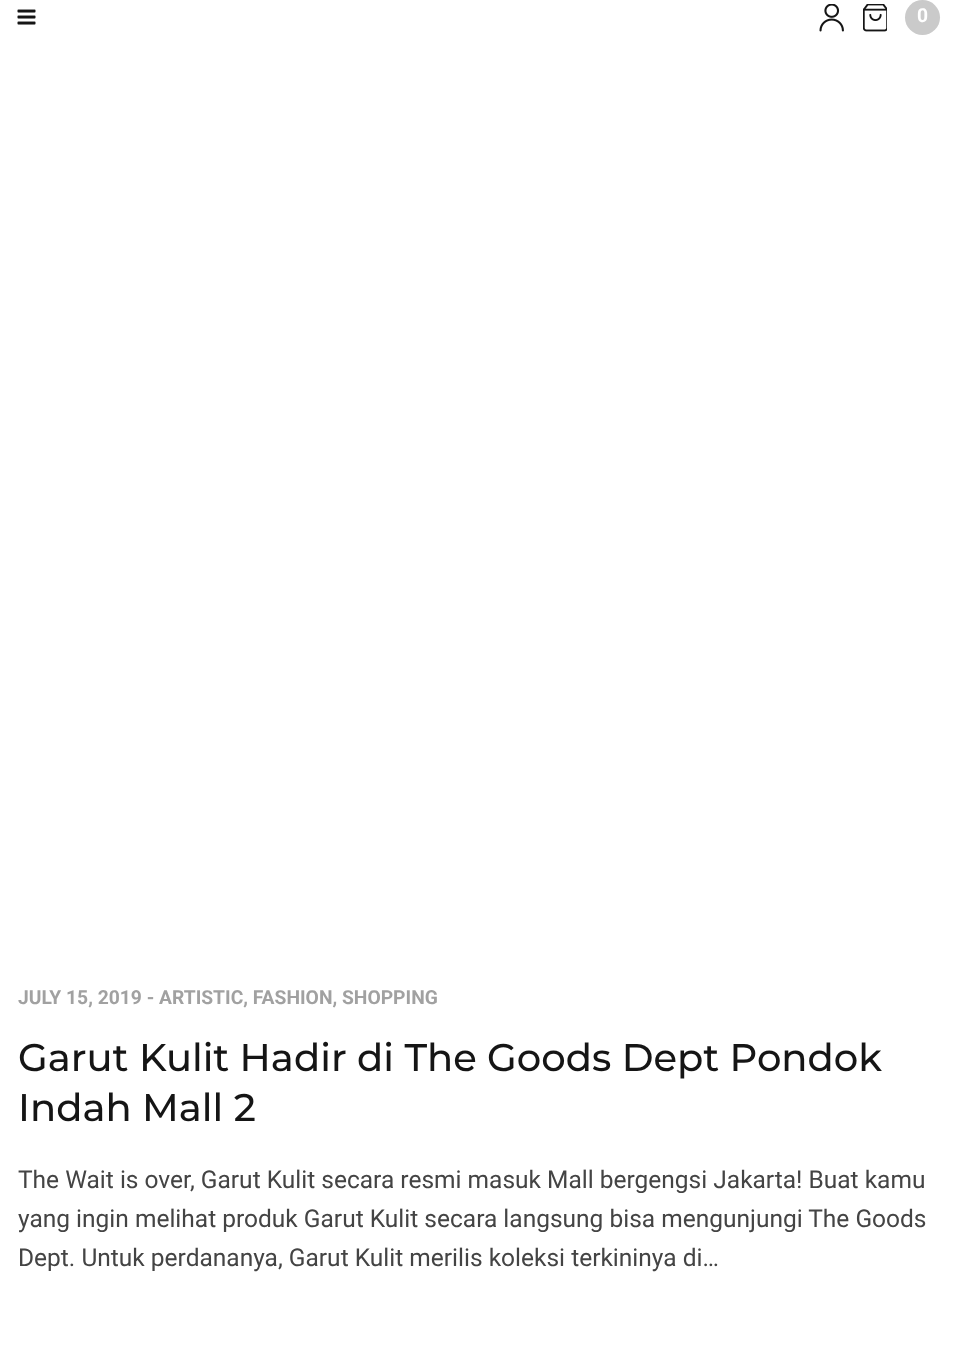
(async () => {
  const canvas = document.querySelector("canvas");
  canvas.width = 957;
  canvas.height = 1352;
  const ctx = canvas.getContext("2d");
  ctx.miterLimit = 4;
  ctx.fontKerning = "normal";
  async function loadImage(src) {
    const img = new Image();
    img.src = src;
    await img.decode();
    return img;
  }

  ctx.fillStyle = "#ffffff";
  ctx.fillRect(0, 0, 957, 1352);
  ctx.drawImage(await loadImage("img/1.png"), 17, 9, 19, 16);
  ctx.drawImage(await loadImage("img/2.png"), 819, 4, 25, 28);
  ctx.drawImage(await loadImage("img/3.png"), 863, 4, 24, 28);
  ctx.fillStyle = "#cacaca";
  ctx.beginPath();
  ctx.arc(922.5, 17.5, 17.5, 0, Math.PI * 2);
  ctx.fill();
  ctx.font = "bold 19.25px Roboto";
  ctx.fillStyle = "#ffffff";
  ctx.fillText("0", 917, 22);
  ctx.fillStyle = "#a1a1a1";
  ctx.fillText("JULY 15, 2019 - ARTISTIC, FASHION, SHOPPING", 18, 1004);
  ctx.font = "500 38.5px Montserrat";
  ctx.fillStyle = "#151515";
  ctx.fillText("Garut Kulit Hadir di The Goods Dept Pondok", 18, 1071);
  ctx.fillText("Indah Mall 2", 18, 1121);
  ctx.font = "24.5px Roboto";
  ctx.fillStyle = "#444444";
  for (const [text, x, y] of [
    ["The Wait is over, Garut Kulit secara resmi masuk Mall bergengsi Jakarta! Buat kamu", 18, 1188],
    ["yang ingin melihat produk Garut Kulit secara langsung bisa mengunjungi The Goods", 18, 1227],
    ["Dept. Untuk perdananya, Garut Kulit merilis koleksi terkininya di…", 18, 1266],
  ]) {
    ctx.fillText(text, x, y);
  }
})();
